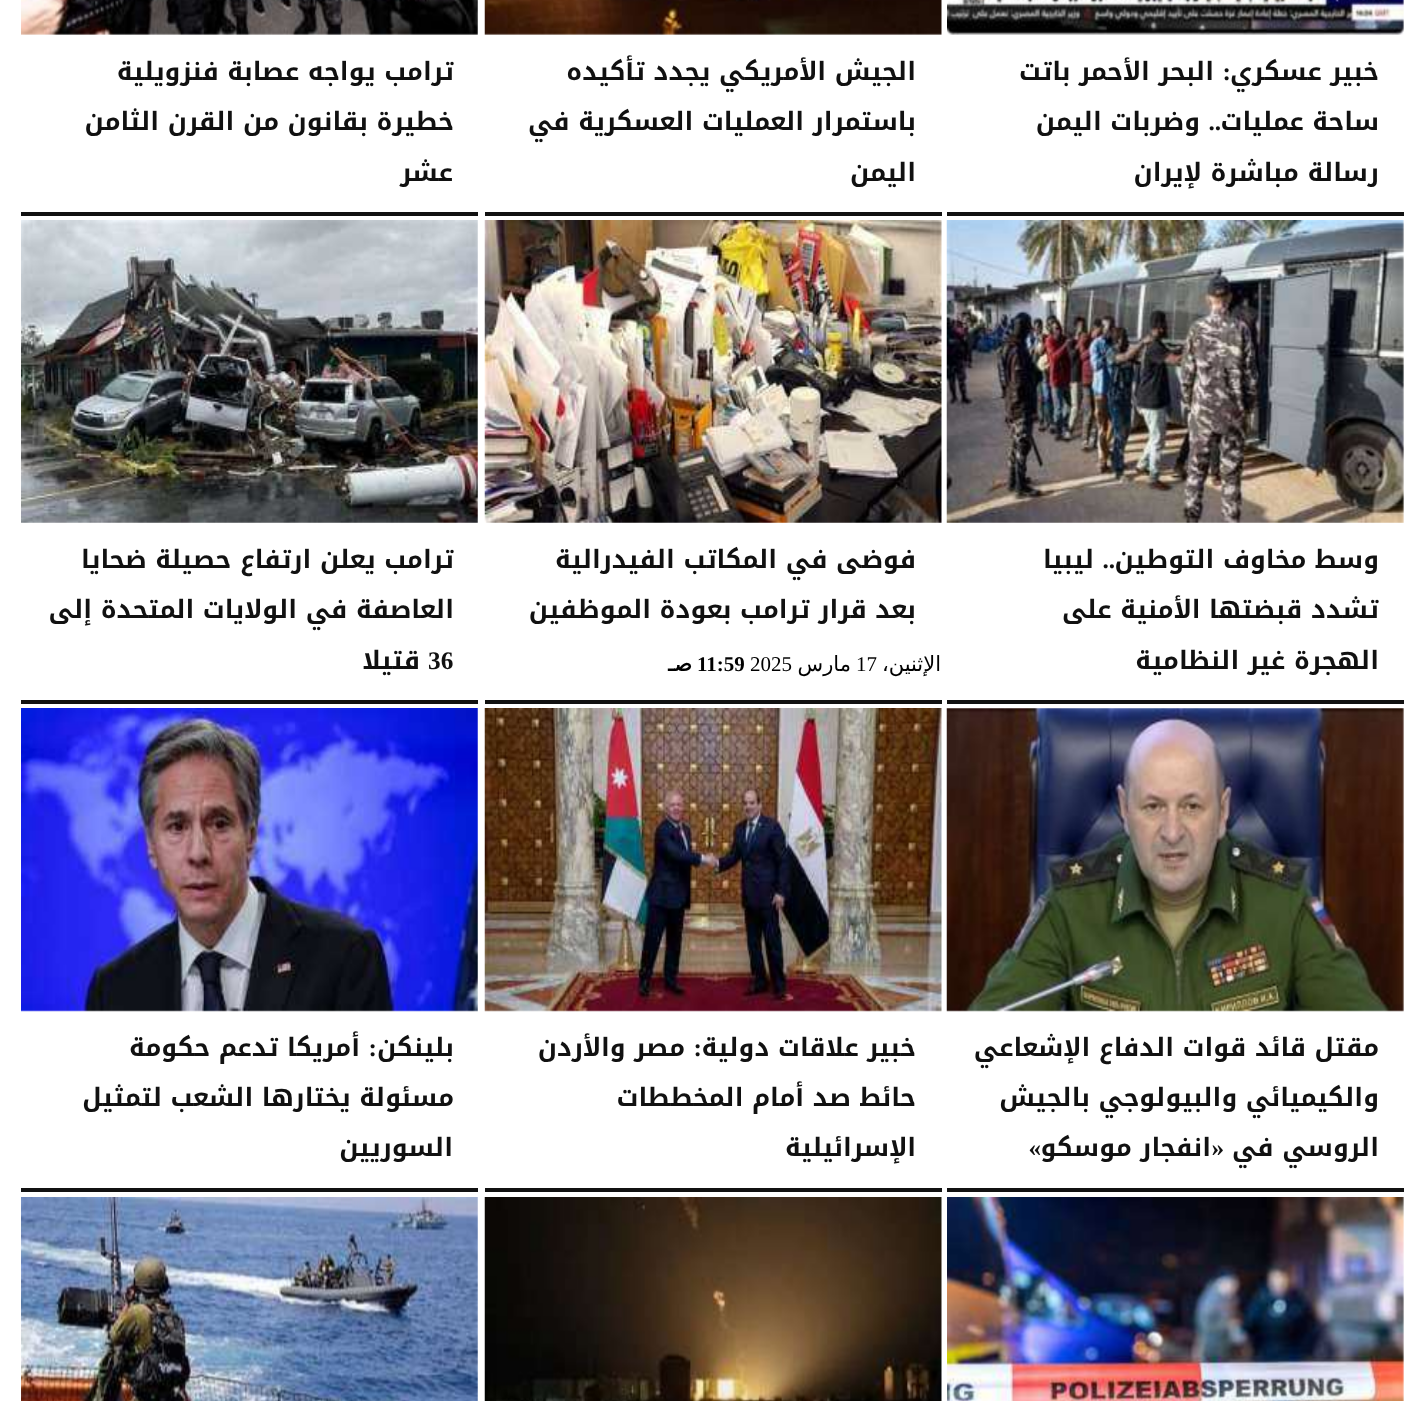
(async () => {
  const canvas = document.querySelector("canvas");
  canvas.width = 1406;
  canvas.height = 1401;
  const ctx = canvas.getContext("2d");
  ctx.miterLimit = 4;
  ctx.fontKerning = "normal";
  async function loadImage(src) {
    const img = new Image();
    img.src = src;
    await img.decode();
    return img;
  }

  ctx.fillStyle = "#ffffff";
  ctx.fillRect(0, 0, 1406, 1401);
  ctx.fillStyle = "#111111";
  ctx.fillRect(947, 212, 457, 4);
  ctx.drawImage(await loadImage("img/1.png"), 947, 0, 457, 35);
  ctx.fillRect(485, 212, 457, 4);
  ctx.drawImage(await loadImage("img/2.png"), 484, 0, 458, 35);
  ctx.fillRect(21, 212, 457, 4);
  ctx.drawImage(await loadImage("img/3.png"), 21, 0, 457, 35);
  ctx.fillRect(947, 700, 457, 4);
  ctx.drawImage(await loadImage("img/4.png"), 946, 220, 458, 303);
  ctx.fillRect(485, 700, 457, 4);
  ctx.drawImage(await loadImage("img/5.png"), 484, 220, 458, 303);
  ctx.fillRect(21, 700, 457, 4);
  ctx.drawImage(await loadImage("img/6.png"), 21, 220, 457, 303);
  ctx.fillRect(947, 1188, 457, 4);
  ctx.drawImage(await loadImage("img/7.png"), 946, 708, 458, 304);
  ctx.fillRect(485, 1188, 457, 4);
  ctx.drawImage(await loadImage("img/8.png"), 484, 708, 458, 304);
  ctx.fillRect(21, 1188, 457, 4);
  ctx.drawImage(await loadImage("img/9.png"), 21, 708, 457, 304);
  ctx.drawImage(await loadImage("img/10.png"), 947, 1197, 457, 204);
  ctx.drawImage(await loadImage("img/11.png"), 484, 1197, 458, 204);
  ctx.drawImage(await loadImage("img/12.png"), 21, 1197, 457, 204);
  ctx.direction = "rtl";
  ctx.font = "bold 25.25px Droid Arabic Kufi";
  ctx.fillText("خبير عسكري", 1379, 80);
  ctx.font = "bold 25.25px Liberation Serif";
  ctx.fillText(":", 1231, 80);
  ctx.font = "bold 25.25px Droid Arabic Kufi";
  ctx.fillText("البحر الأحمر باتت", 1214, 80);
  ctx.fillText("ساحة عمليات", 1379, 130);
  ctx.font = "bold 25.25px Liberation Serif";
  ctx.fillText("..", 1221, 130);
  ctx.font = "bold 25.25px Droid Arabic Kufi";
  for (const [text, x, y] of [
    ["وضربات اليمن", 1200, 130],
    ["رسالة مباشرة لإيران", 1379, 181],
    ["الجيش الأمريكي يجدد تأكيده", 916, 80],
    ["باستمرار العمليات العسكرية في", 916, 130],
    ["اليمن", 916, 181],
    ["ترامب يواجه عصابة فنزويلية", 454, 80],
    ["خطيرة بقانون من القرن الثامن", 454, 130],
    ["عشر", 453, 181],
    ["وسط مخاوف التوطين", 1379, 568],
  ]) {
    ctx.fillText(text, x, y);
  }
  ctx.font = "bold 25.25px Liberation Serif";
  ctx.fillText("..", 1115, 568);
  ctx.font = "bold 25.25px Droid Arabic Kufi";
  for (const [text, x, y] of [
    ["ليبيا", 1094, 568],
    ["تشدد قبضتها الأمنية على", 1379, 618],
    ["الهجرة غير النظامية", 1379, 669],
    ["فوضى في المكاتب الفيدرالية", 916, 568],
    ["بعد قرار ترامب بعودة الموظفين", 916, 618],
  ]) {
    ctx.fillText(text, x, y);
  }
  ctx.font = "21px DejaVu Sans";
  ctx.fillStyle = "#000000";
  ctx.fillText("الإثنين،", 941, 671);
  ctx.direction = "ltr";
  ctx.font = "21px Liberation Serif";
  ctx.fillText("17", 856, 671);
  ctx.direction = "rtl";
  ctx.font = "21px DejaVu Sans";
  ctx.fillText("مارس", 851, 671);
  ctx.direction = "ltr";
  ctx.font = "21px Liberation Serif";
  ctx.fillText("2025", 750, 671);
  ctx.font = "bold 21px Liberation Serif";
  ctx.fillText("11:59", 697, 671);
  ctx.direction = "rtl";
  ctx.font = "bold 21px DejaVu Sans";
  ctx.fillText("صـ", 692, 671);
  ctx.font = "bold 25.25px Droid Arabic Kufi";
  ctx.fillStyle = "#111111";
  ctx.fillText("ترامب يعلن ارتفاع حصيلة ضحايا", 454, 568);
  ctx.fillText("العاصفة في الولايات المتحدة إلى", 454, 618);
  ctx.direction = "ltr";
  ctx.font = "bold 25.25px Liberation Serif";
  ctx.fillText("36", 428, 669);
  ctx.direction = "rtl";
  ctx.font = "bold 25.25px Droid Arabic Kufi";
  for (const [text, x, y] of [
    ["قتيلا", 420, 669],
    ["مقتل قائد قوات الدفاع الإشعاعي", 1379, 1056],
    ["والكيميائي والبيولوجي بالجيش", 1379, 1106],
    ["الروسي في", 1379, 1156],
  ]) {
    ctx.fillText(text, x, y);
  }
  ctx.font = "bold 25.25px Liberation Serif";
  ctx.fillText("«", 1224, 1156);
  ctx.font = "bold 25.25px Droid Arabic Kufi";
  ctx.fillText("انفجار موسكو", 1211, 1156);
  ctx.font = "bold 25.25px Liberation Serif";
  ctx.fillText("»", 1041, 1156);
  ctx.font = "bold 25.25px Droid Arabic Kufi";
  ctx.fillText("خبير علاقات دولية", 916, 1056);
  ctx.font = "bold 25.25px Liberation Serif";
  ctx.fillText(":", 702, 1056);
  ctx.font = "bold 25.25px Droid Arabic Kufi";
  for (const [text, x, y] of [
    ["مصر والأردن", 685, 1056],
    ["حائط صد أمام المخططات", 916, 1106],
    ["الإسرائيلية", 916, 1156],
    ["بلينكن", 454, 1056],
  ]) {
    ctx.fillText(text, x, y);
  }
  ctx.font = "bold 25.25px Liberation Serif";
  ctx.fillText(":", 377, 1056);
  ctx.font = "bold 25.25px Droid Arabic Kufi";
  for (const [text, x, y] of [
    ["أمريكا تدعم حكومة", 360, 1056],
    ["مسئولة يختارها الشعب لتمثيل", 454, 1106],
    ["السوريين", 453, 1156],
  ]) {
    ctx.fillText(text, x, y);
  }
})();
